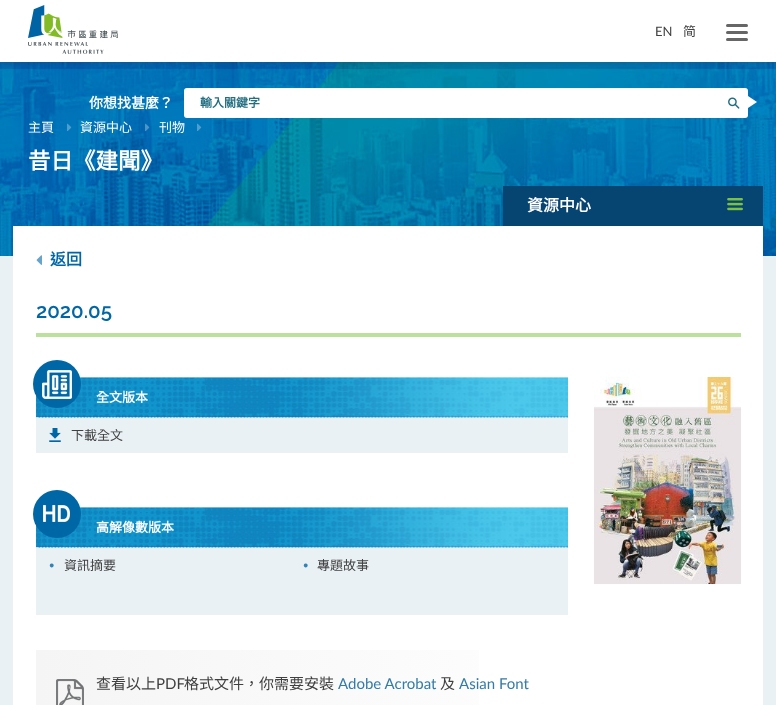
(async () => {
  const canvas = document.querySelector("canvas");
  canvas.width = 776;
  canvas.height = 705;
  const ctx = canvas.getContext("2d");
  ctx.miterLimit = 4;
  ctx.fontKerning = "normal";
  async function loadImage(src) {
    const img = new Image();
    img.src = src;
    await img.decode();
    return img;
  }
  let gradient, path;

  ctx.fillStyle = "#eaf1f5";
  ctx.fillRect(0, 0, 776, 705);
  ctx.drawImage(await loadImage("img/2.png"), 0, 62, 776, 194);
  ctx.fillStyle = "rgba(50, 50, 50, 0.15)";
  ctx.filter = "blur(2.5px)";
  ctx.beginPath();
  ctx.rect(0, 2, 776, 62);
  ctx.fill();
  ctx.filter = "none";
  ctx.fillStyle = "#ffffff";
  ctx.fillRect(0, 0, 776, 62);
  ctx.drawImage(await loadImage("img/1.png"), 28, 5, 90, 49);
  ctx.fillStyle = "#666666";
  ctx.beginPath();
  ctx.roundRect(726, 24, 22, 3, 1.5);
  ctx.fill();
  ctx.beginPath();
  ctx.roundRect(726, 31, 22, 3, 1.5);
  ctx.fill();
  ctx.beginPath();
  ctx.roundRect(726, 38, 22, 3, 1.5);
  ctx.fill();
  ctx.fillStyle = "#ffffff";
  ctx.beginPath();
  ctx.roundRect(184, 88, 564, 30, 3);
  ctx.fill();
  ctx.drawImage(await loadImage("img/3.png"), 728, 97, 12, 12);
  path = new Path2D("M748 108V96L757 102Z");
  ctx.fill(path);
  ctx.drawImage(await loadImage("img/4.png"), 67, 123, 5, 8);
  ctx.drawImage(await loadImage("img/5.png"), 145, 123, 5, 8);
  ctx.drawImage(await loadImage("img/6.png"), 197, 123, 5, 8);
  ctx.fillRect(13, 226, 750, 479);
  ctx.fillStyle = "#064472";
  ctx.fillRect(503, 186, 260, 40);
  ctx.drawImage(await loadImage("img/7.png"), 727, 198, 16, 13);
  ctx.drawImage(await loadImage("img/8.png"), 36, 255, 6, 10);
  ctx.fillStyle = "#bce09e";
  ctx.fillRect(36, 333, 705, 4);
  ctx.drawImage(await loadImage("img/9.png"), 36, 377, 532, 41);
  ctx.fillStyle = "#0067a6";
  ctx.beginPath();
  ctx.arc(57, 384, 24, 0, Math.PI * 2);
  ctx.fill();
  ctx.drawImage(await loadImage("img/10.png"), 42, 370, 30, 29);
  ctx.fillStyle = "#eaf1f5";
  ctx.fillRect(36, 418, 532, 35);
  ctx.drawImage(await loadImage("img/11.png"), 49, 428, 12, 14);
  ctx.drawImage(await loadImage("img/9.png"), 36, 507, 532, 41);
  ctx.fillStyle = "#0067a6";
  ctx.beginPath();
  ctx.arc(57, 514, 24, 0, Math.PI * 2);
  ctx.fill();
  ctx.drawImage(await loadImage("img/12.png"), 43, 505, 27, 17);
  ctx.fillStyle = "#eaf1f5";
  ctx.fillRect(36, 548, 532, 67);
  gradient = ctx.createLinearGradient(36, 695, 568, 695);
  gradient.addColorStop(0, "#f6f5f5");
  gradient.addColorStop(0.8, "#fcfcfc");
  gradient.addColorStop(1, "#ffffff");
  ctx.fillStyle = gradient;
  ctx.fillRect(36, 650, 443, 55);
  ctx.drawImage(await loadImage("img/13.png"), 56, 679, 28, 26);
  ctx.drawImage(await loadImage("img/14.png"), 594, 377, 147, 207);
  ctx.font = "13px Lato";
  ctx.fillStyle = "#404040";
  ctx.fillText("EN", 655, 36);
  ctx.font = "13px Noto Sans CJK SC";
  ctx.fillText("简", 683, 36);
  ctx.font = "bold 14px Noto Sans CJK HK";
  ctx.fillStyle = "#ffffff";
  ctx.fillText("你想找甚麼？", 89, 108);
  ctx.font = "bold 12px Noto Sans CJK HK";
  ctx.fillStyle = "#216e81";
  ctx.fillText("輸入關鍵字", 200, 107);
  ctx.font = "13px Noto Sans CJK HK";
  ctx.fillStyle = "#ffffff";
  for (const [text, x, y] of [
    ["主頁", 28, 132],
    ["資源中心", 80, 132],
    ["刊物", 159, 132],
  ]) {
    ctx.fillText(text, x, y);
  }
  ctx.font = "bold 22.5px Noto Sans CJK HK";
  ctx.fillText("昔日《建聞》", 28, 169);
  ctx.font = "bold 16px Noto Sans CJK HK";
  ctx.fillText("資源中心", 527, 211);
  ctx.fillStyle = "#0067a6";
  ctx.fillText("返回", 50, 265);
  ctx.font = "600 20.5px Raleway";
  ctx.fillText("2020.05", 36, 318);
  ctx.font = "bold 13px Noto Sans CJK HK";
  ctx.fillStyle = "#ffffff";
  ctx.fillText("全文版本", 96, 402);
  ctx.font = "13px Noto Sans CJK HK";
  ctx.fillStyle = "#404040";
  ctx.fillText("下載全文", 71, 440);
  ctx.font = "bold 13px Noto Sans CJK HK";
  ctx.fillStyle = "#ffffff";
  ctx.fillText("高解像數版本", 96, 532);
  ctx.font = "9px Liberation Sans";
  ctx.fillStyle = "#2f83b6";
  ctx.fillText("●", 49, 568);
  ctx.font = "13px Noto Sans CJK HK";
  ctx.fillStyle = "#404040";
  ctx.fillText("資訊摘要", 64, 570);
  ctx.font = "9px Liberation Sans";
  ctx.fillStyle = "#2f83b6";
  ctx.fillText("●", 303, 568);
  ctx.font = "13px Noto Sans CJK HK";
  ctx.fillStyle = "#404040";
  ctx.fillText("專題故事", 317, 570);
  ctx.font = "15px Noto Sans CJK HK";
  ctx.fillText("查看以上", 96, 689);
  ctx.font = "15px Lato";
  ctx.fillText("PDF", 156, 689);
  ctx.font = "15px Noto Sans CJK HK";
  ctx.fillText("格式文件，你需要安裝", 184, 689);
  ctx.font = "15px Lato";
  ctx.fillStyle = "#337ba8";
  ctx.fillText("Adobe Acrobat", 338, 689);
  ctx.font = "15px Noto Sans CJK HK";
  ctx.fillStyle = "#404040";
  ctx.fillText("及", 440, 689);
  ctx.font = "15px Lato";
  ctx.fillStyle = "#337ba8";
  ctx.fillText("Asian Font", 459, 689);
})();
